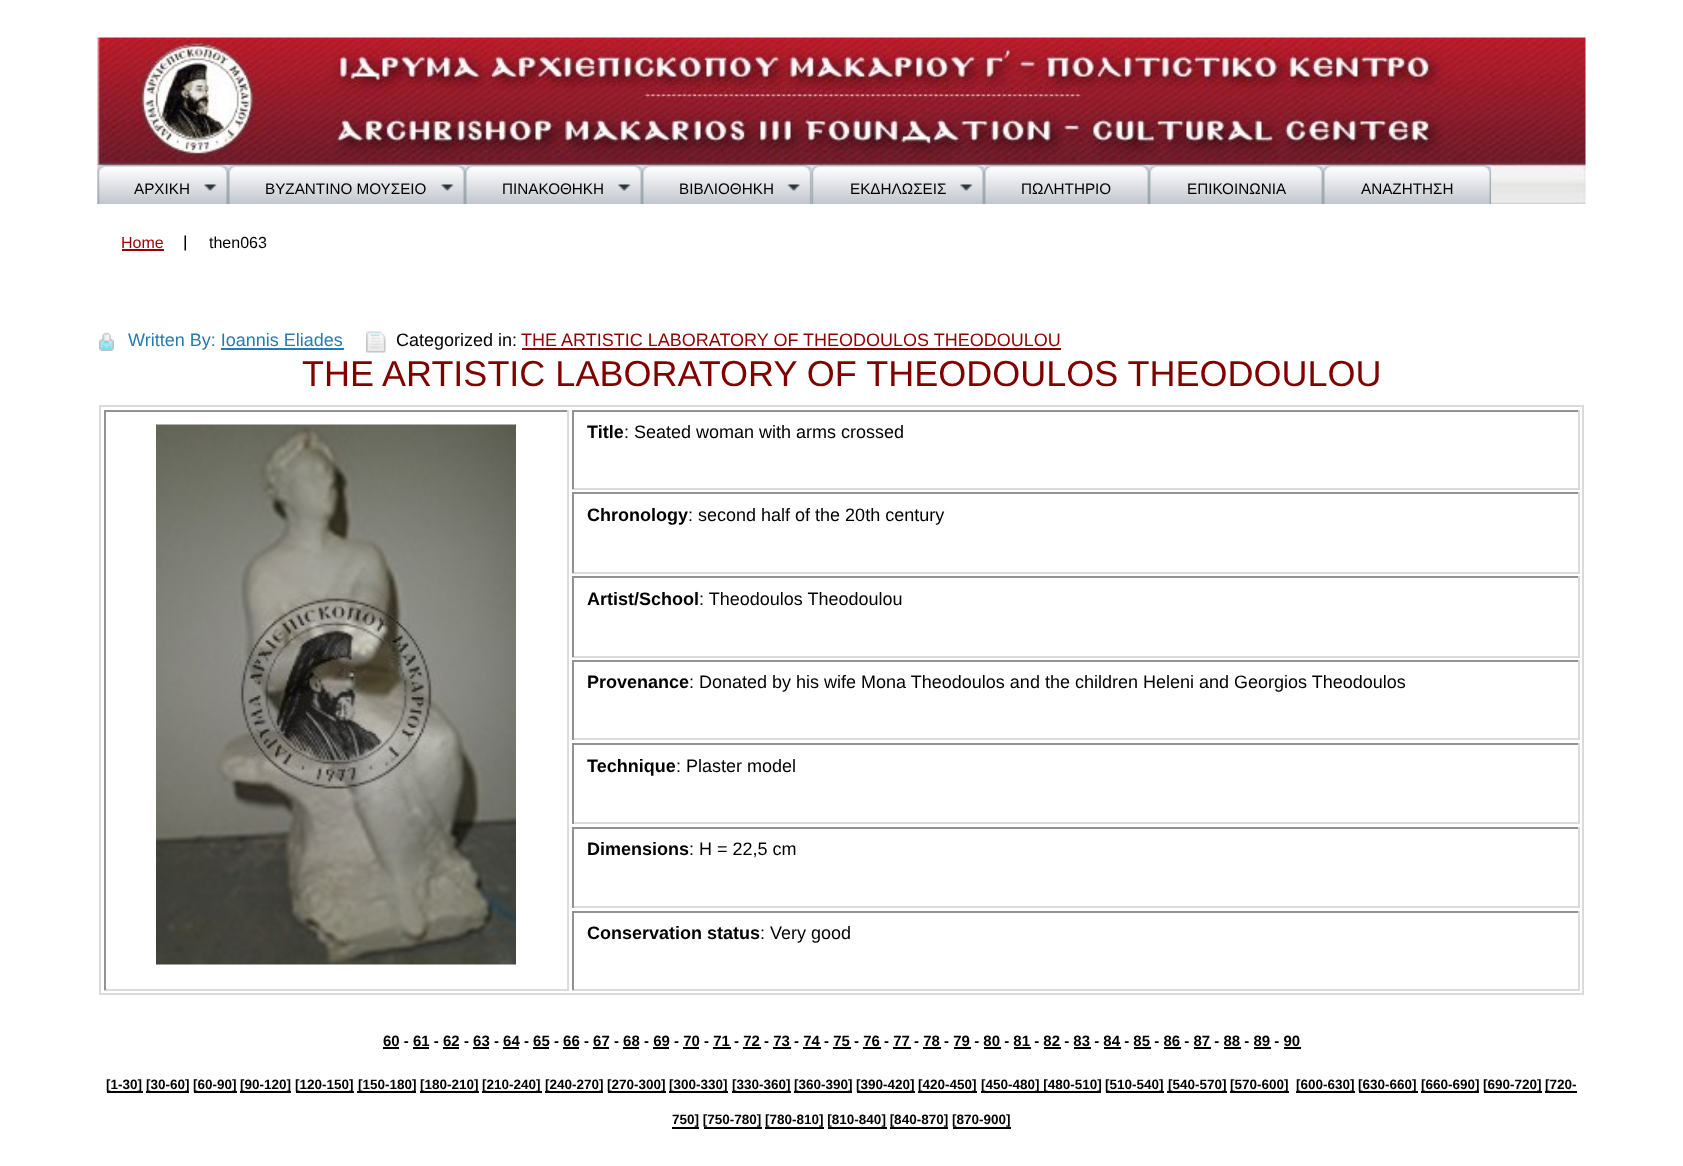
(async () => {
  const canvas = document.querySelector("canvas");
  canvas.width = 1683;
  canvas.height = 1166;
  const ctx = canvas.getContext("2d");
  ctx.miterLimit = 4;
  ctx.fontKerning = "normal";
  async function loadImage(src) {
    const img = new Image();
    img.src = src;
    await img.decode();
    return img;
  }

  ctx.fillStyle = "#ffffff";
  ctx.fillRect(0, 0, 1683, 1166);
  ctx.drawImage(await loadImage("img/1.png"), 97, 37, 1489, 167);
  ctx.drawImage(await loadImage("img/2.png"), 97, 165, 124, 39);
  ctx.drawImage(await loadImage("img/3.png"), 204, 184, 13, 7);
  ctx.drawImage(await loadImage("img/4.png"), 220, 165, 8, 39);
  ctx.drawImage(await loadImage("img/5.png"), 228, 165, 230, 39);
  ctx.drawImage(await loadImage("img/6.png"), 441, 184, 13, 7);
  ctx.drawImage(await loadImage("img/4.png"), 457, 165, 8, 39);
  ctx.drawImage(await loadImage("img/7.png"), 465, 165, 170, 39);
  ctx.drawImage(await loadImage("img/3.png"), 618, 184, 13, 7);
  ctx.drawImage(await loadImage("img/8.png"), 634, 165, 8, 39);
  ctx.drawImage(await loadImage("img/9.png"), 642, 165, 170, 39);
  ctx.drawImage(await loadImage("img/10.png"), 787, 184, 13, 7);
  ctx.drawImage(await loadImage("img/11.png"), 804, 165, 8, 39);
  ctx.drawImage(await loadImage("img/12.png"), 811, 165, 166, 39);
  ctx.drawImage(await loadImage("img/3.png"), 960, 184, 13, 7);
  ctx.drawImage(await loadImage("img/4.png"), 976, 165, 8, 39);
  ctx.drawImage(await loadImage("img/13.png"), 984, 165, 158, 39);
  ctx.drawImage(await loadImage("img/8.png"), 1141, 165, 8, 39);
  ctx.drawImage(await loadImage("img/14.png"), 1149, 165, 167, 39);
  ctx.drawImage(await loadImage("img/8.png"), 1315, 165, 8, 39);
  ctx.drawImage(await loadImage("img/15.png"), 1323, 165, 161, 39);
  ctx.drawImage(await loadImage("img/8.png"), 1483, 165, 8, 39);
  ctx.fillStyle = "#990000";
  ctx.fillRect(122, 249, 42, 2);
  ctx.drawImage(await loadImage("img/16.png"), 184, 235, 2, 16);
  ctx.drawImage(await loadImage("img/17.png"), 99, 332, 15, 19);
  ctx.fillStyle = "#287bac";
  ctx.fillRect(221, 348, 123, 2);
  ctx.drawImage(await loadImage("img/18.png"), 366, 331, 20, 22);
  ctx.fillStyle = "#910000";
  ctx.fillRect(522, 348, 539, 2);
  ctx.strokeStyle = "#dbdbdb";
  ctx.lineWidth = 2;
  ctx.strokeRect(100, 406, 1483, 588);
  for (const [x, y, w, h, color] of [
    [104, 410, 465, 2, "#929292"],
    [567, 410, 2, 580, "#dbdbdb"],
    [104, 989, 465, 2, "#dbdbdb"],
    [104, 410, 2, 580, "#929292"],
  ]) {
    ctx.fillStyle = color;
    ctx.fillRect(x, y, w, h);
  }
  ctx.drawImage(await loadImage("img/19.png"), 156, 424, 360, 541);
  for (const [x, y, w, h, color] of [
    [572, 410, 1008, 2, "#929292"],
    [1578, 410, 2, 79, "#dbdbdb"],
    [572, 488, 1008, 2, "#dbdbdb"],
    [572, 410, 2, 79, "#929292"],
    [572, 492, 1008, 2, "#929292"],
    [1578, 492, 2, 81, "#dbdbdb"],
    [572, 572, 1008, 2, "#dbdbdb"],
    [572, 492, 2, 81, "#929292"],
    [572, 576, 1008, 2, "#929292"],
    [1578, 576, 2, 81, "#dbdbdb"],
    [572, 656, 1008, 2, "#dbdbdb"],
    [572, 576, 2, 81, "#929292"],
    [572, 660, 1008, 2, "#929292"],
    [1578, 660, 2, 80, "#dbdbdb"],
    [572, 738, 1008, 2, "#dbdbdb"],
    [572, 660, 2, 80, "#929292"],
    [572, 743, 1008, 2, "#929292"],
    [1578, 743, 2, 81, "#dbdbdb"],
    [572, 822, 1008, 2, "#dbdbdb"],
    [572, 743, 2, 81, "#929292"],
    [572, 827, 1008, 2, "#929292"],
    [1578, 827, 2, 81, "#dbdbdb"],
    [572, 906, 1008, 2, "#dbdbdb"],
    [572, 827, 2, 81, "#929292"],
    [572, 911, 1008, 2, "#929292"],
    [1578, 911, 2, 79, "#dbdbdb"],
    [572, 989, 1008, 2, "#dbdbdb"],
    [572, 911, 2, 79, "#929292"],
    [383, 1047, 16, 2, "#000000"],
    [413, 1047, 16, 2, "#000000"],
    [443, 1047, 16, 2, "#000000"],
    [473, 1047, 16, 2, "#000000"],
    [503, 1047, 16, 2, "#000000"],
    [533, 1047, 16, 2, "#000000"],
    [563, 1047, 16, 2, "#000000"],
    [593, 1047, 16, 2, "#000000"],
    [623, 1047, 16, 2, "#000000"],
    [653, 1047, 16, 2, "#000000"],
    [683, 1047, 16, 2, "#000000"],
    [713, 1047, 18, 2, "#000000"],
    [743, 1047, 18, 2, "#000000"],
    [773, 1047, 18, 2, "#000000"],
    [803, 1047, 18, 2, "#000000"],
    [833, 1047, 18, 2, "#000000"],
    [863, 1047, 18, 2, "#000000"],
    [893, 1047, 18, 2, "#000000"],
    [923, 1047, 18, 2, "#000000"],
    [954, 1047, 17, 2, "#000000"],
    [984, 1047, 17, 2, "#000000"],
    [1014, 1047, 17, 2, "#000000"],
    [1044, 1047, 17, 2, "#000000"],
    [1074, 1047, 17, 2, "#000000"],
    [1104, 1047, 17, 2, "#000000"],
    [1134, 1047, 17, 2, "#000000"],
    [1164, 1047, 17, 2, "#000000"],
    [1194, 1047, 17, 2, "#000000"],
    [1224, 1047, 17, 2, "#000000"],
    [1254, 1047, 17, 2, "#000000"],
    [1284, 1047, 17, 2, "#000000"],
    [107, 1091, 36, 2, "#000000"],
    [146, 1091, 43, 2, "#000000"],
    [194, 1091, 43, 2, "#000000"],
    [240, 1091, 51, 2, "#000000"],
    [296, 1091, 58, 2, "#000000"],
    [357, 1091, 59, 2, "#000000"],
    [420, 1091, 59, 2, "#000000"],
    [482, 1091, 60, 2, "#000000"],
    [545, 1091, 58, 2, "#000000"],
    [608, 1091, 58, 2, "#000000"],
    [669, 1091, 59, 2, "#000000"],
    [732, 1091, 59, 2, "#000000"],
    [794, 1091, 58, 2, "#000000"],
    [857, 1091, 58, 2, "#000000"],
    [918, 1091, 59, 2, "#000000"],
    [981, 1091, 120, 2, "#000000"],
    [1106, 1091, 58, 2, "#000000"],
    [1167, 1091, 60, 2, "#000000"],
    [1230, 1091, 59, 2, "#000000"],
    [1296, 1091, 59, 2, "#000000"],
    [1359, 1091, 59, 2, "#000000"],
    [1421, 1091, 58, 2, "#000000"],
    [1484, 1091, 58, 2, "#000000"],
    [1545, 1091, 32, 2, "#000000"],
    [672, 1127, 27, 2, "#000000"],
    [704, 1127, 58, 2, "#000000"],
    [765, 1127, 59, 2, "#000000"],
    [828, 1127, 59, 2, "#000000"],
    [890, 1127, 58, 2, "#000000"],
    [953, 1127, 58, 2, "#000000"],
  ]) {
    ctx.fillStyle = color;
    ctx.fillRect(x, y, w, h);
  }
  ctx.font = "15.25px Liberation Sans";
  for (const [text, x, y] of [
    ["ΑΡΧΙΚΗ", 134, 194],
    ["ΒΥΖΑΝΤΙΝΟ ΜΟΥΣΕΙΟ", 265, 194],
    ["ΠΙΝΑΚΟΘΗΚΗ", 502, 194],
    ["ΒΙΒΛΙΟΘΗΚΗ", 679, 194],
    ["ΕΚΔΗΛΩΣΕΙΣ", 850, 194],
    ["ΠΩΛΗΤΗΡΙΟ", 1021, 194],
    ["ΕΠΙΚΟΙΝΩΝΙΑ", 1187, 194],
    ["ΑΝΑΖΗΤΗΣΗ", 1361, 194],
  ]) {
    ctx.fillText(text, x, y);
  }
  ctx.font = "16px Liberation Sans";
  ctx.fillStyle = "#990000";
  ctx.fillText("Home", 121, 248);
  ctx.fillStyle = "#000000";
  ctx.fillText("then063", 209, 248);
  ctx.font = "18px Liberation Sans";
  ctx.fillStyle = "#287bac";
  ctx.fillText("Written By: Ioannis Eliades", 128, 346);
  ctx.fillStyle = "#000000";
  ctx.fillText("Categorized in:", 396, 346);
  ctx.fillStyle = "#910000";
  ctx.fillText("THE ARTISTIC LABORATORY OF THEODOULOS THEODOULOU", 521, 346);
  ctx.font = "36px Liberation Sans";
  ctx.fillStyle = "#800000";
  ctx.fillText("THE ARTISTIC LABORATORY OF THEODOULOS THEODOULOU", 302, 386);
  ctx.font = "bold 18px Liberation Sans";
  ctx.fillStyle = "#000000";
  ctx.fillText("Title", 587, 438);
  ctx.font = "18px Liberation Sans";
  ctx.fillText(": Seated woman with arms crossed", 624, 438);
  ctx.font = "bold 18px Liberation Sans";
  ctx.fillText("Chronology", 587, 521);
  ctx.font = "18px Liberation Sans";
  ctx.fillText(": second half of the 20th century", 688, 521);
  ctx.font = "bold 18px Liberation Sans";
  ctx.fillText("Artist/School", 587, 605);
  ctx.font = "18px Liberation Sans";
  ctx.fillText(": Theodoulos Theodoulou", 699, 605);
  ctx.font = "bold 18px Liberation Sans";
  ctx.fillText("Provenance", 587, 688);
  ctx.font = "18px Liberation Sans";
  ctx.fillText(": Donated by his wife Mona Theodoulos and the children Heleni and Georgios Theodoulos", 689, 688);
  ctx.font = "bold 18px Liberation Sans";
  ctx.fillText("Technique", 587, 772);
  ctx.font = "18px Liberation Sans";
  ctx.fillText(": Plaster model", 676, 772);
  ctx.font = "bold 18px Liberation Sans";
  ctx.fillText("Dimensions", 587, 855);
  ctx.font = "18px Liberation Sans";
  ctx.fillText(": H = 22,5 cm", 689, 855);
  ctx.font = "bold 18px Liberation Sans";
  ctx.fillText("Conservation status", 587, 939);
  ctx.font = "18px Liberation Sans";
  ctx.fillText(": Very good", 760, 939);
  ctx.font = "bold 15px Liberation Sans";
  ctx.fillText("60 - 61 - 62 - 63 - 64 - 65 - 66 - 67 - 68 - 69 - 70 - 71 - 72 - 73 - 74 - 75 - 76 - 77 - 78 - 79 - 80 - 81 - 82 - 83 - 84 - 85 - 86 - 87 - 88 - 89 - 90", 383, 1046);
  ctx.font = "bold 13.5px Liberation Sans";
  for (const [text, x, y] of [
    ["[1-30]", 106, 1089],
    ["[30-60]", 146, 1089],
    ["[60-90]", 193, 1089],
    ["[90-120]", 240, 1089],
    ["[120-150]", 295, 1089],
    ["[150-180]", 358, 1089],
    ["[180-210]", 420, 1089],
    ["[210-240]", 482, 1089],
    ["[240-270]", 545, 1089],
    ["[270-300]", 607, 1089],
    ["[300-330]", 669, 1089],
    ["[330-360]", 732, 1089],
    ["[360-390]", 794, 1089],
    ["[390-420]", 856, 1089],
    ["[420-450]", 918, 1089],
    ["[450-480] [480-510]", 981, 1089],
    ["[510-540]", 1105, 1089],
    ["[540-570]", 1168, 1089],
    ["[570-600]", 1230, 1089],
    ["[600-630]", 1296, 1089],
    ["[630-660]", 1358, 1089],
    ["[660-690]", 1421, 1089],
    ["[690-720]", 1483, 1089],
    ["[720-", 1545, 1089],
    ["750] [750-780] [780-810] [810-840] [840-870] [870-900]", 672, 1124],
  ]) {
    ctx.fillText(text, x, y);
  }
})();
